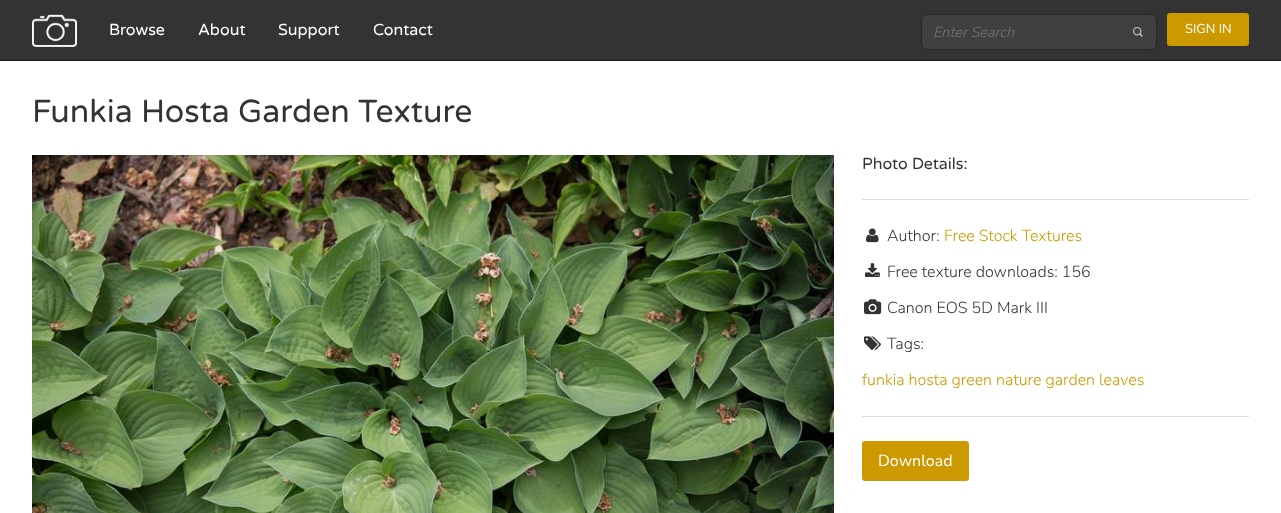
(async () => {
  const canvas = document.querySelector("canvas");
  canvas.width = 1281;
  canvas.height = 513;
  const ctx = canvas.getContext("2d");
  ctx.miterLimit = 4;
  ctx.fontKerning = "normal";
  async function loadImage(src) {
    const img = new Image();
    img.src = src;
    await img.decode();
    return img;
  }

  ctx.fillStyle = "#ffffff";
  ctx.fillRect(0, 0, 1281, 513);
  ctx.fillStyle = "#333333";
  ctx.fillRect(0, 0, 1281, 60);
  ctx.fillStyle = "#1a1a1a";
  ctx.fillRect(0, 60, 1281, 1);
  ctx.drawImage(await loadImage("img/1.png"), 32, 14, 45, 33);
  ctx.fillStyle = "#404040";
  ctx.beginPath();
  ctx.roundRect(921.5, 14.5, 235, 35, 5.5);
  ctx.fill();
  ctx.strokeStyle = "#262626";
  ctx.stroke();
  ctx.drawImage(await loadImage("img/2.png"), 1133, 27, 10, 10);
  ctx.fillStyle = "#cc9900";
  ctx.beginPath();
  ctx.roundRect(1167, 13, 82, 33, 3);
  ctx.fill();
  ctx.drawImage(await loadImage("img/3.png"), 32, 155, 802, 358);
  ctx.fillStyle = "#dddddd";
  ctx.fillRect(862, 199, 387, 1);
  ctx.drawImage(await loadImage("img/4.png"), 866, 228, 13, 15);
  ctx.drawImage(await loadImage("img/5.png"), 865, 263, 15, 14);
  ctx.drawImage(await loadImage("img/6.png"), 864, 299, 18, 16);
  ctx.drawImage(await loadImage("img/7.png"), 864, 336, 17, 14);
  ctx.fillRect(862, 416, 387, 1);
  ctx.fillStyle = "#cc9900";
  ctx.beginPath();
  ctx.roundRect(862, 441, 107, 40, 3);
  ctx.fill();
  ctx.font = "16px Varela Round";
  ctx.fillStyle = "#ffffff";
  for (const [text, x, y] of [
    ["Browse", 109, 35],
    ["About", 198, 35],
    ["Support", 278, 35],
    ["Contact", 373, 35],
  ]) {
    ctx.fillText(text, x, y);
  }
  ctx.font = "italic 300 14.5px Nunito";
  ctx.fillStyle = "#757575";
  ctx.fillText("Enter Search", 933, 37);
  ctx.font = "13px Nunito";
  ctx.fillStyle = "#ffffff";
  ctx.fillText("SIGN IN", 1185, 33);
  ctx.font = "32px Varela Round";
  ctx.fillStyle = "#333333";
  ctx.fillText("Funkia Hosta Garden Texture", 32, 122);
  ctx.font = "16px Varela Round";
  ctx.fillText("Photo Details:", 862, 169);
  ctx.font = "300 16px Nunito";
  ctx.fillText("Author:", 887, 241);
  ctx.fillStyle = "#cc9900";
  ctx.fillText("Free Stock Textures", 944, 241);
  ctx.fillStyle = "#333333";
  for (const [text, x, y] of [
    ["Free texture downloads: 156", 887, 277],
    ["Canon EOS 5D Mark III", 887, 313],
    ["Tags:", 887, 349],
  ]) {
    ctx.fillText(text, x, y);
  }
  ctx.fillStyle = "#cc9900";
  ctx.fillText("funkia hosta green nature garden leaves", 862, 385);
  ctx.font = "16px Nunito";
  ctx.fillStyle = "#ffffff";
  ctx.fillText("Download", 878, 466);
})();
